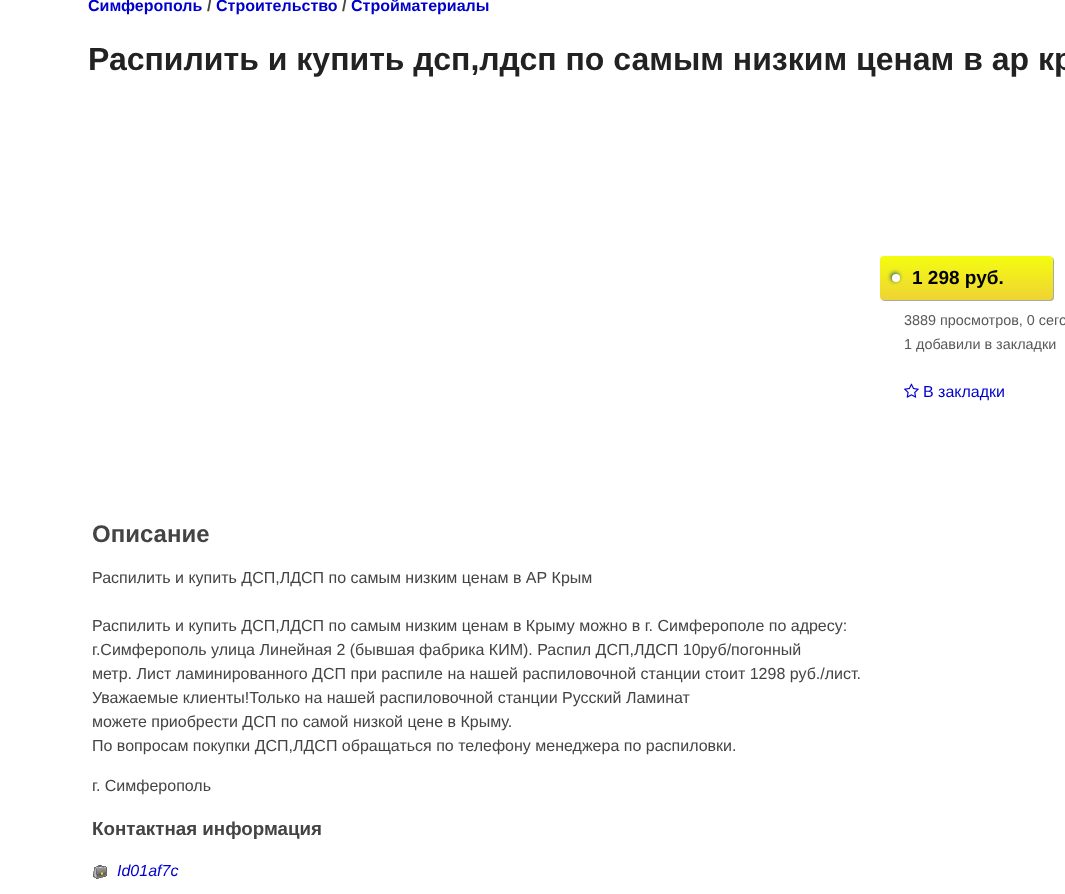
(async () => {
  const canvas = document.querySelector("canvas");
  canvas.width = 1065;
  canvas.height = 894;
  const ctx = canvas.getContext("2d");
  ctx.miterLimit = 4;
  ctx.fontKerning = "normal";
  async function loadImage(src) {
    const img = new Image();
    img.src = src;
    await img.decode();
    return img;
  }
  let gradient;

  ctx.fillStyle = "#ffffff";
  ctx.fillRect(0, 0, 1065, 894);
  ctx.fillStyle = "#aaaaaa";
  ctx.filter = "blur(0.5px)";
  ctx.beginPath();
  ctx.roundRect(881, 257, 173, 44, 4);
  ctx.fill();
  ctx.filter = "none";
  gradient = ctx.createLinearGradient(880, 256, 880, 300);
  gradient.addColorStop(0, "#f4fd0f");
  gradient.addColorStop(1, "#efd334");
  ctx.fillStyle = gradient;
  ctx.beginPath();
  ctx.roundRect(880, 256, 173, 44, 4);
  ctx.fill();
  ctx.fillStyle = "#004977";
  ctx.filter = "blur(2px)";
  ctx.beginPath();
  ctx.roundRect(891, 273, 8, 8, 4);
  ctx.fill();
  ctx.filter = "none";
  ctx.fillStyle = "#ffffff";
  ctx.beginPath();
  ctx.arc(896, 278, 4, 0, Math.PI * 2);
  ctx.fill();
  ctx.drawImage(await loadImage("img/1.png"), 904, 383, 15, 15);
  ctx.drawImage(await loadImage("img/2.png"), 93, 865, 14, 14);
  ctx.font = "bold 16px Liberation Sans";
  ctx.fillStyle = "#0000cc";
  ctx.fillText("Симферополь", 88, 11);
  ctx.fillStyle = "#444444";
  ctx.fillText("/", 207, 11);
  ctx.fillStyle = "#0000cc";
  ctx.fillText("Строительство", 216, 11);
  ctx.fillStyle = "#444444";
  ctx.fillText("/", 342, 11);
  ctx.fillStyle = "#0000cc";
  ctx.fillText("Стройматериалы", 351, 11);
  ctx.font = "bold 32px Liberation Sans";
  ctx.fillStyle = "#222222";
  ctx.fillText("Распилить и купить дсп,лдсп по самым низким ценам в ар кр", 88, 70);
  ctx.font = "bold 19px Liberation Sans";
  ctx.fillStyle = "#000000";
  ctx.fillText("1 298 руб.", 912, 284);
  ctx.font = "14.4px Liberation Sans";
  ctx.fillStyle = "#595959";
  ctx.fillText("3889 просмотров, 0 сего", 904, 325);
  ctx.fillText("1 добавили в закладки", 904, 349);
  ctx.font = "16px Liberation Sans";
  ctx.fillStyle = "#0000cc";
  ctx.fillText("В закладки", 923, 397);
  ctx.font = "bold 24px Liberation Sans";
  ctx.fillStyle = "#444444";
  ctx.fillText("Описание", 92, 542);
  ctx.font = "16px Liberation Sans";
  for (const [text, x, y] of [
    ["Распилить и купить ДСП,ЛДСП по самым низким ценам в АР Крым", 92, 583],
    ["Распилить и купить ДСП,ЛДСП по самым низким ценам в Крыму можно в г. Симферополе по адресу:", 92, 631],
    ["г.Симферополь улица Линейная 2 (бывшая фабрика КИМ). Распил ДСП,ЛДСП 10руб/погонный", 92, 655],
    ["метр. Лист ламинированного ДСП при распиле на нашей распиловочной станции стоит 1298 руб./лист.", 92, 679],
    ["Уважаемые клиенты!Только на нашей распиловочной станции Русский Ламинат", 92, 703],
    ["можете приобрести ДСП по самой низкой цене в Крыму.", 92, 727],
    ["По вопросам покупки ДСП,ЛДСП обращаться по телефону менеджера по распиловки.", 92, 751],
    ["г. Симферополь", 92, 791],
  ]) {
    ctx.fillText(text, x, y);
  }
  ctx.font = "bold 18.75px Liberation Sans";
  ctx.fillText("Контактная информация", 92, 835);
  ctx.font = "italic 16px Liberation Sans";
  ctx.fillStyle = "#0000cc";
  ctx.fillText("Id01af7c", 117, 876);
})();
